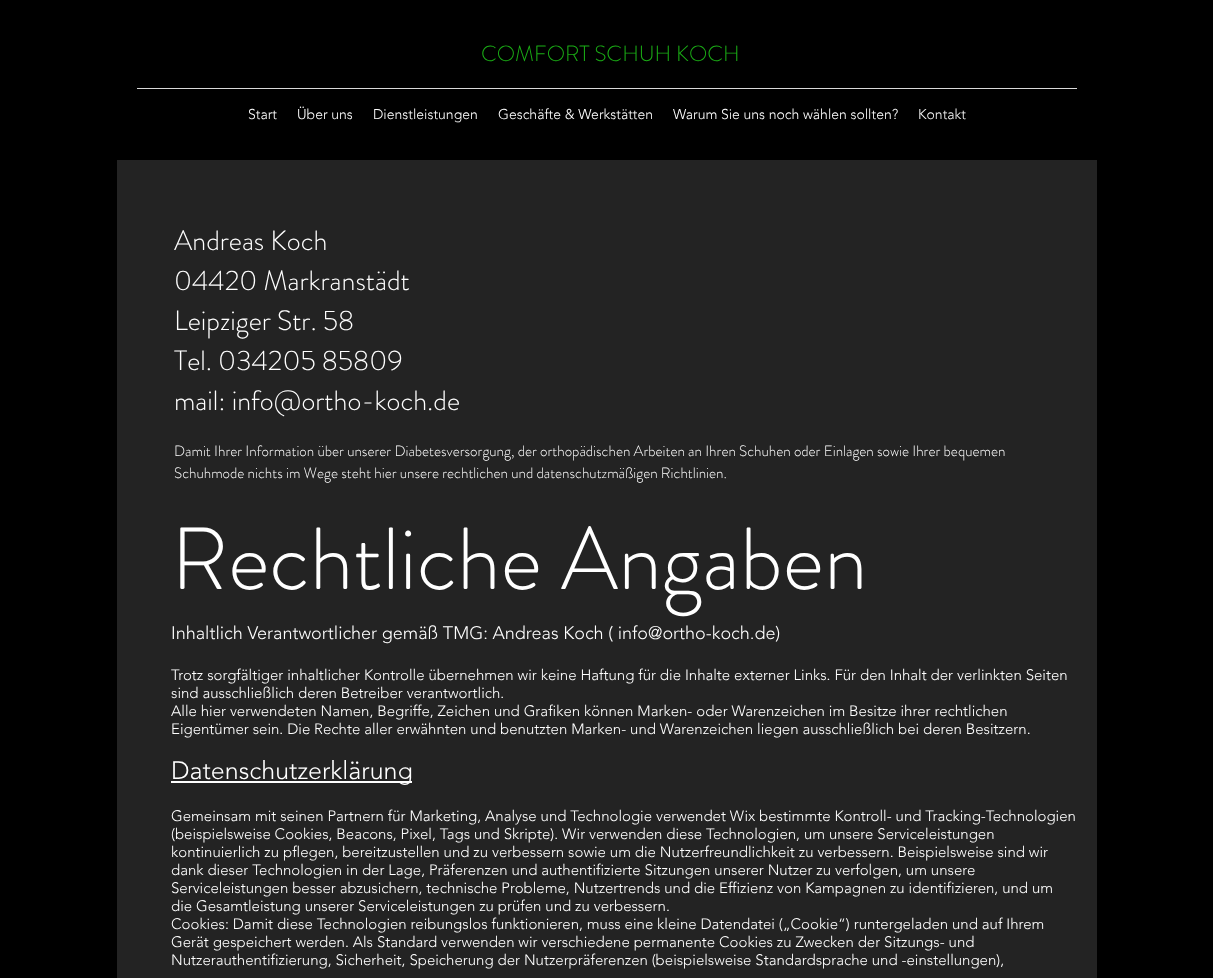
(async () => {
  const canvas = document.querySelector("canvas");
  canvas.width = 1213;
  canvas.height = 978;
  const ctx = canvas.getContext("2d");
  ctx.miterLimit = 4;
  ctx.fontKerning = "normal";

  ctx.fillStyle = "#000000";
  ctx.fillRect(0, 0, 1213, 978);
  for (const [x, y, w, h, color] of [
    [137, 88, 940, 1, "#d9d9d9"],
    [117, 160, 980, 818, "#232323"],
    [171, 781, 241, 2, "#ffffff"],
  ]) {
    ctx.fillStyle = color;
    ctx.fillRect(x, y, w, h);
  }
  ctx.font = "300 22px 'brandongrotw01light'";
  ctx.fillStyle = "#1aab15";
  ctx.fillText("COMFORT SCHUH KOCH", 481, 61);
  ctx.font = "300 14px 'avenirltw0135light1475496'";
  ctx.fillStyle = "#ffffff";
  for (const [text, x, y] of [
    ["Start", 248, 119],
    ["Über uns", 297, 119],
    ["Dienstleistungen", 373, 119],
    ["Geschäfte & Werkstätten", 498, 119],
    ["Warum Sie uns noch wählen sollten?", 673, 119],
  ]) {
    ctx.fillText(text, x, y);
  }
  ctx.fillStyle = "#f7f7f7";
  ctx.fillText("Kontakt", 918, 119);
  ctx.font = "300 28px 'brandongrotw01light'";
  ctx.fillStyle = "#ffffff";
  for (const [text, x, y] of [
    ["Andreas Koch", 174, 250],
    ["04420 Markranstädt", 174, 290],
    ["Leipziger Str. 58", 174, 330],
    ["Tel. 034205 85809", 174, 370],
    ["mail: info@ortho-koch.de", 174, 410],
  ]) {
    ctx.fillText(text, x, y);
  }
  ctx.font = "300 15px 'brandongrotw01light'";
  ctx.fillText("Damit Ihrer Information über unserer Diabetesversorgung, der orthopädischen Arbeiten an Ihren Schuhen oder Einlagen sowie Ihrer bequemen", 174, 456);
  ctx.fillText("Schuhmode nichts im Wege steht hier unsere rechtlichen und datenschutzmäßigen Richtlinien.", 174, 478);
  ctx.font = "300 88px 'brandongrotw01light'";
  ctx.fillText("Rechtliche Angaben", 171, 589);
  ctx.font = "300 18px 'avenirltw0135light1475496'";
  ctx.fillText("Inhaltlich Verantwortlicher gemäß TMG: Andreas Koch ( info@ortho-koch.de)", 171, 639);
  ctx.font = "300 15px 'avenirltw0135light1475496'";
  for (const [text, x, y] of [
    ["Trotz sorgfältiger inhaltlicher Kontrolle übernehmen wir keine Haftung für die Inhalte externer Links. Für den Inhalt der verlinkten Seiten", 171, 680],
    ["sind ausschließlich deren Betreiber verantwortlich.", 171, 698],
    ["Alle hier verwendeten Namen, Begriffe, Zeichen und Grafiken können Marken- oder Warenzeichen im Besitze ihrer rechtlichen", 171, 716],
    ["Eigentümer sein. Die Rechte aller erwähnten und benutzten Marken- und Warenzeichen liegen ausschließlich bei deren Besitzern.", 171, 734],
  ]) {
    ctx.fillText(text, x, y);
  }
  ctx.font = "300 25px 'avenirltw0135light1475496'";
  ctx.fillText("Datenschutzerklärung", 171, 779);
  ctx.font = "300 15px 'avenirltw0135light1475496'";
  for (const [text, x, y] of [
    ["Gemeinsam mit seinen Partnern für Marketing, Analyse und Technologie verwendet Wix bestimmte Kontroll- und Tracking-Technologien", 171, 821],
    ["(beispielsweise Cookies, Beacons, Pixel, Tags und Skripte). Wir verwenden diese Technologien, um unsere Serviceleistungen", 171, 839],
    ["kontinuierlich zu pflegen, bereitzustellen und zu verbessern sowie um die Nutzerfreundlichkeit zu verbessern. Beispielsweise sind wir", 171, 857],
    ["dank dieser Technologien in der Lage, Präferenzen und authentifizierte Sitzungen unserer Nutzer zu verfolgen, um unsere", 171, 875],
    ["Serviceleistungen besser abzusichern, technische Probleme, Nutzertrends und die Effizienz von Kampagnen zu identifizieren, und um", 171, 893],
    ["die Gesamtleistung unserer Serviceleistungen zu prüfen und zu verbessern.", 171, 911],
    ["Cookies: Damit diese Technologien reibungslos funktionieren, muss eine kleine Datendatei („Cookie“) runtergeladen und auf Ihrem", 171, 929],
    ["Gerät gespeichert werden. Als Standard verwenden wir verschiedene permanente Cookies zu Zwecken der Sitzungs- und", 171, 947],
    ["Nutzerauthentifizierung, Sicherheit, Speicherung der Nutzerpräferenzen (beispielsweise Standardsprache und -einstellungen),", 171, 965],
  ]) {
    ctx.fillText(text, x, y);
  }
})();
